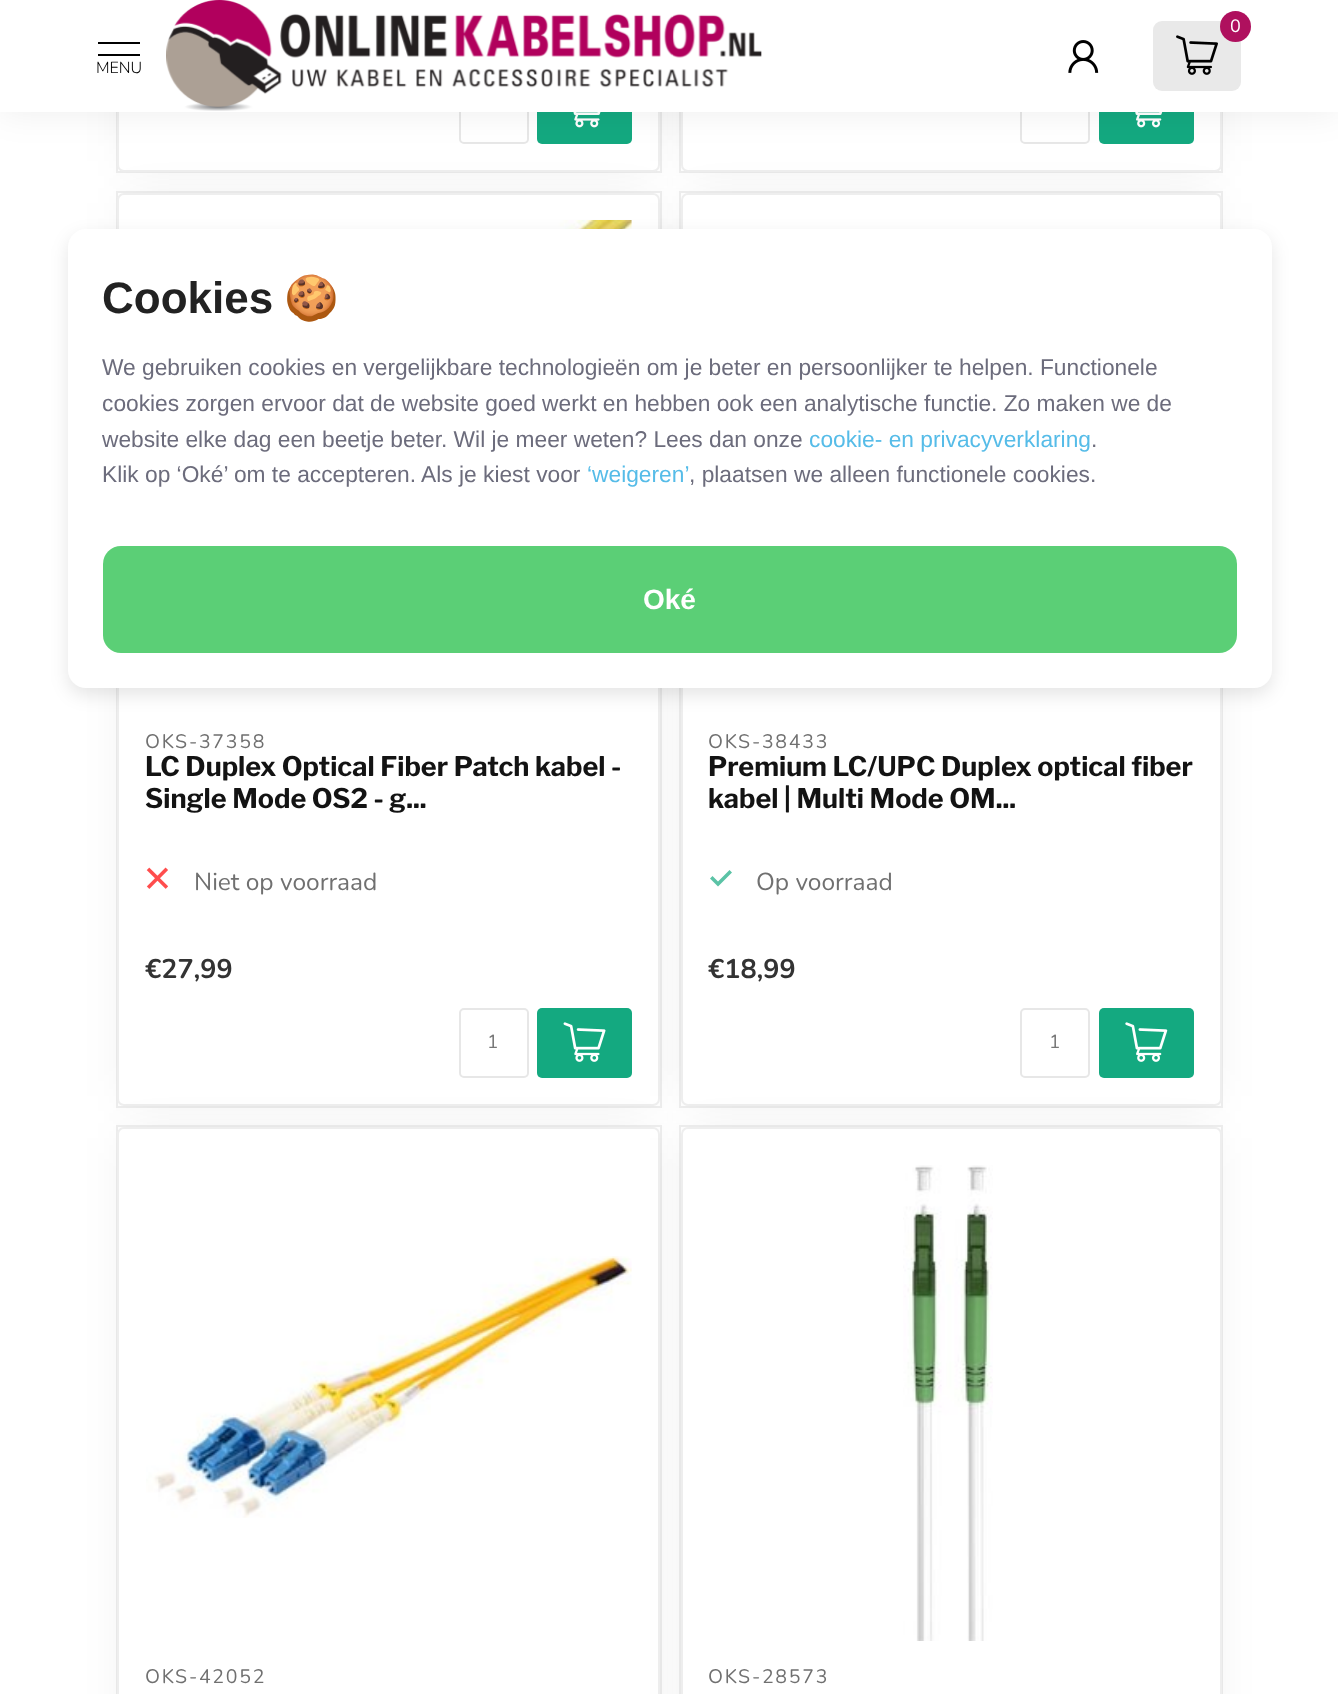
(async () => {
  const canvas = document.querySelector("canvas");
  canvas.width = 1338;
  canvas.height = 1694;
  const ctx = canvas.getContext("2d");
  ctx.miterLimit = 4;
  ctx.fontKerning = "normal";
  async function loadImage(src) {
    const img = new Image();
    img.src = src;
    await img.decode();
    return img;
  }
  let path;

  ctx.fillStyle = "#ffffff";
  ctx.fillRect(0, 0, 1338, 1694);
  ctx.strokeStyle = "#eeeeee";
  ctx.lineWidth = 2;
  ctx.strokeRect(117, -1, 544, 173);
  ctx.fillStyle = "rgba(0, 0, 0, 0.07)";
  ctx.filter = "blur(23px)";
  ctx.beginPath();
  ctx.rect(128, -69, 521, 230);
  ctx.fill();
  ctx.filter = "none";
  ctx.fillStyle = "#ffffff";
  ctx.beginPath();
  ctx.roundRect(117, -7, 543, 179, 7);
  ctx.fill();
  ctx.beginPath();
  ctx.roundRect(118, -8, 541, 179, 6);
  ctx.strokeStyle = "rgba(155, 155, 155, 0.17)";
  ctx.stroke();
  ctx.beginPath();
  ctx.roundRect(460, 75, 68, 68, 4);
  ctx.strokeStyle = "#e7e7e7";
  ctx.stroke();
  ctx.fillStyle = "#14a980";
  ctx.beginPath();
  ctx.roundRect(537, 74, 95, 70, 5);
  ctx.fill();
  ctx.drawImage(await loadImage("img/4.png"), 573, 112, 28, 16);
  ctx.strokeStyle = "#eeeeee";
  ctx.strokeRect(680, -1, 542, 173);
  ctx.fillStyle = "rgba(0, 0, 0, 0.07)";
  ctx.filter = "blur(23px)";
  ctx.beginPath();
  ctx.rect(691, -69, 520, 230);
  ctx.fill();
  ctx.filter = "none";
  ctx.fillStyle = "#ffffff";
  ctx.beginPath();
  ctx.roundRect(681, -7, 541, 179, 7);
  ctx.fill();
  ctx.beginPath();
  ctx.roundRect(682, -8, 539, 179, 6);
  ctx.strokeStyle = "rgba(155, 155, 155, 0.17)";
  ctx.stroke();
  ctx.beginPath();
  ctx.roundRect(1021, 75, 68, 68, 4);
  ctx.strokeStyle = "#e7e7e7";
  ctx.stroke();
  ctx.fillStyle = "#14a980";
  ctx.beginPath();
  ctx.roundRect(1099, 74, 95, 70, 5);
  ctx.fill();
  ctx.drawImage(await loadImage("img/5.png"), 1135, 112, 28, 16);
  ctx.fillStyle = "rgba(0, 0, 0, 0.07)";
  ctx.filter = "blur(17.5px)";
  ctx.beginPath();
  ctx.rect(0, -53, 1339, 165);
  ctx.fill();
  ctx.filter = "none";
  ctx.fillStyle = "#ffffff";
  ctx.fillRect(0, 0, 1338, 112);
  ctx.fillStyle = "rgba(102, 102, 102, 0.14)";
  ctx.beginPath();
  ctx.roundRect(1153, 21, 88, 70, 9);
  ctx.fill();
  ctx.fillStyle = "#af105e";
  ctx.beginPath();
  ctx.arc(1235.5, 26.5, 15.5, 0, Math.PI * 2);
  ctx.fill();
  ctx.drawImage(await loadImage("img/1.png"), 1176, 35, 42, 40);
  ctx.drawImage(await loadImage("img/2.png"), 1068, 40, 31, 33);
  ctx.fillStyle = "#000000";
  ctx.fillRect(98, 42, 42, 2);
  ctx.fillRect(98, 54, 42, 2);
  ctx.drawImage(await loadImage("img/3.png"), 166, 0, 596, 111);
  ctx.strokeStyle = "#eeeeee";
  ctx.strokeRect(117, 192, 544, 915);
  ctx.fillStyle = "rgba(0, 0, 0, 0.07)";
  ctx.filter = "blur(23px)";
  ctx.beginPath();
  ctx.rect(128, 203, 521, 893);
  ctx.fill();
  ctx.filter = "none";
  ctx.fillStyle = "#ffffff";
  ctx.beginPath();
  ctx.roundRect(117, 193, 543, 913, 7);
  ctx.fill();
  ctx.beginPath();
  ctx.roundRect(118, 194, 541, 911, 6);
  ctx.strokeStyle = "rgba(155, 155, 155, 0.17)";
  ctx.stroke();
  ctx.drawImage(await loadImage("img/6.png"), 171, 220, 461, 9);
  ctx.strokeStyle = "#eeeeee";
  ctx.strokeRect(680, 192, 542, 915);
  ctx.fillStyle = "#14a980";
  ctx.beginPath();
  ctx.roundRect(537, 1008, 95, 70, 5);
  ctx.fill();
  ctx.fillStyle = "rgba(0, 0, 0, 0.07)";
  ctx.filter = "blur(23px)";
  ctx.beginPath();
  ctx.rect(691, 203, 520, 893);
  ctx.fill();
  ctx.filter = "none";
  ctx.fillStyle = "#ffffff";
  ctx.beginPath();
  ctx.roundRect(681, 193, 541, 913, 7);
  ctx.fill();
  ctx.beginPath();
  ctx.roundRect(682, 194, 539, 911, 6);
  ctx.strokeStyle = "rgba(155, 155, 155, 0.17)";
  ctx.stroke();
  ctx.fillStyle = "rgba(0, 0, 0, 0.1)";
  ctx.filter = "blur(9px)";
  ctx.beginPath();
  ctx.roundRect(68, 236, 1204, 459, 18);
  ctx.fill();
  ctx.filter = "none";
  ctx.fillStyle = "#ffffff";
  ctx.beginPath();
  ctx.roundRect(68, 229, 1204, 459, 18);
  ctx.fill();
  ctx.fillStyle = "#5bcf76";
  ctx.beginPath();
  ctx.roundRect(103, 546, 1134, 107, 18);
  ctx.fill();
  ctx.drawImage(await loadImage("img/7.png"), 146, 867, 22, 22);
  ctx.beginPath();
  ctx.roundRect(460, 1009, 68, 68, 4);
  ctx.strokeStyle = "#e7e7e7";
  ctx.stroke();
  ctx.drawImage(await loadImage("img/8.png"), 563, 1022, 43, 40);
  ctx.fillStyle = "#5bc3a6";
  path = new Path2D("M718 886.5L710 878.5L712.5 876L718 881.5L729.5 870L732 872.5Z");
  ctx.fill(path);
  ctx.beginPath();
  ctx.roundRect(1021, 1009, 68, 68, 4);
  ctx.stroke();
  ctx.fillStyle = "#14a980";
  ctx.beginPath();
  ctx.roundRect(1099, 1008, 95, 70, 5);
  ctx.fill();
  ctx.drawImage(await loadImage("img/9.png"), 1125, 1022, 43, 40);
  ctx.strokeStyle = "#eeeeee";
  ctx.strokeRect(117, 1126, 544, 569);
  ctx.fillStyle = "rgba(0, 0, 0, 0.07)";
  ctx.filter = "blur(23px)";
  ctx.beginPath();
  ctx.rect(128, 1138, 521, 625);
  ctx.fill();
  ctx.filter = "none";
  ctx.fillStyle = "#ffffff";
  ctx.beginPath();
  ctx.roundRect(117, 1127, 543, 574, 7);
  ctx.fill();
  ctx.beginPath();
  ctx.roundRect(118, 1128, 541, 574, 6);
  ctx.strokeStyle = "rgba(155, 155, 155, 0.17)";
  ctx.stroke();
  ctx.drawImage(await loadImage("img/10.png"), 146, 1256, 486, 262);
  ctx.strokeStyle = "#eeeeee";
  ctx.strokeRect(680, 1126, 542, 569);
  ctx.fillStyle = "rgba(0, 0, 0, 0.07)";
  ctx.filter = "blur(23px)";
  ctx.beginPath();
  ctx.rect(691, 1138, 520, 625);
  ctx.fill();
  ctx.filter = "none";
  ctx.fillStyle = "#ffffff";
  ctx.beginPath();
  ctx.roundRect(681, 1127, 541, 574, 7);
  ctx.fill();
  ctx.beginPath();
  ctx.roundRect(682, 1128, 539, 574, 6);
  ctx.strokeStyle = "rgba(155, 155, 155, 0.17)";
  ctx.stroke();
  ctx.drawImage(await loadImage("img/11.png"), 903, 1165, 90, 476);
  ctx.font = "18px Nunito";
  ctx.fillText("0", 1230, 32);
  ctx.font = "300 16px Nunito";
  ctx.fillStyle = "#000000";
  ctx.fillText("MENU", 96, 73);
  ctx.font = "bold 44px Liberation Sans";
  ctx.fillStyle = "#222222";
  ctx.fillText("Cookies", 102, 313);
  ctx.font = "bold 44px Noto Color Emoji";
  ctx.fillText("🍪", 284, 313);
  ctx.font = "22.75px Liberation Sans";
  ctx.fillStyle = "#6c6c7c";
  for (const [text, x, y] of [
    ["We gebruiken cookies en vergelijkbare technologieën om je beter en persoonlijker te helpen. Functionele", 102, 375],
    ["cookies zorgen ervoor dat de website goed werkt en hebben ook een analytische functie. Zo maken we de", 102, 411],
    ["website elke dag een beetje beter. Wil je meer weten? Lees dan onze", 102, 447],
  ]) {
    ctx.fillText(text, x, y);
  }
  ctx.fillStyle = "#56bce8";
  ctx.fillText("cookie- en privacyverklaring", 809, 447);
  ctx.fillStyle = "#6c6c7c";
  ctx.fillText(".", 1091, 447);
  ctx.fillText("Klik op ‘Oké’ om te accepteren. Als je kiest voor", 102, 482);
  ctx.fillStyle = "#56bce8";
  ctx.fillText("‘weigeren’", 587, 482);
  ctx.fillStyle = "#6c6c7c";
  ctx.fillText(", plaatsen we alleen functionele cookies.", 689, 482);
  ctx.font = "bold 28px Liberation Sans";
  ctx.fillStyle = "#ffffff";
  ctx.fillText("Oké", 643, 609);
  ctx.letterSpacing = "1.75px";
  ctx.font = "19.5px Nunito";
  ctx.fillStyle = "#707070";
  ctx.fillText("OKS-37358", 145, 748);
  ctx.letterSpacing = "0px";
  ctx.font = "bold 27px Libre Franklin";
  ctx.fillStyle = "#131313";
  ctx.fillText("LC Duplex Optical Fiber Patch kabel -", 145, 776);
  ctx.fillText("Single Mode OS2 - g...", 145, 808);
  ctx.font = "24.5px Nunito";
  ctx.fillStyle = "#707070";
  ctx.fillText("Niet op voorraad", 194, 890);
  ctx.font = "bold 27px Nunito";
  ctx.fillStyle = "#333333";
  ctx.fillText("€27,99", 145, 978);
  ctx.font = "19px Nunito";
  ctx.fillStyle = "#777777";
  ctx.fillText("1", 487, 1048);
  ctx.letterSpacing = "1.75px";
  ctx.font = "19.5px Nunito";
  ctx.fillStyle = "#707070";
  ctx.fillText("OKS-38433", 708, 748);
  ctx.letterSpacing = "0px";
  ctx.font = "bold 27px Libre Franklin";
  ctx.fillStyle = "#131313";
  ctx.fillText("Premium LC/UPC Duplex optical fiber", 708, 776);
  ctx.fillText("kabel | Multi Mode OM...", 708, 808);
  ctx.font = "24.5px Nunito";
  ctx.fillStyle = "#707070";
  ctx.fillText("Op voorraad", 756, 890);
  ctx.font = "bold 27px Nunito";
  ctx.fillStyle = "#333333";
  ctx.fillText("€18,99", 708, 978);
  ctx.font = "19px Nunito";
  ctx.fillStyle = "#777777";
  ctx.fillText("1", 1049, 1048);
  ctx.letterSpacing = "1.75px";
  ctx.font = "19.5px Nunito";
  ctx.fillStyle = "#707070";
  ctx.fillText("OKS-42052", 145, 1683);
  ctx.fillText("OKS-28573", 708, 1683);
})();
